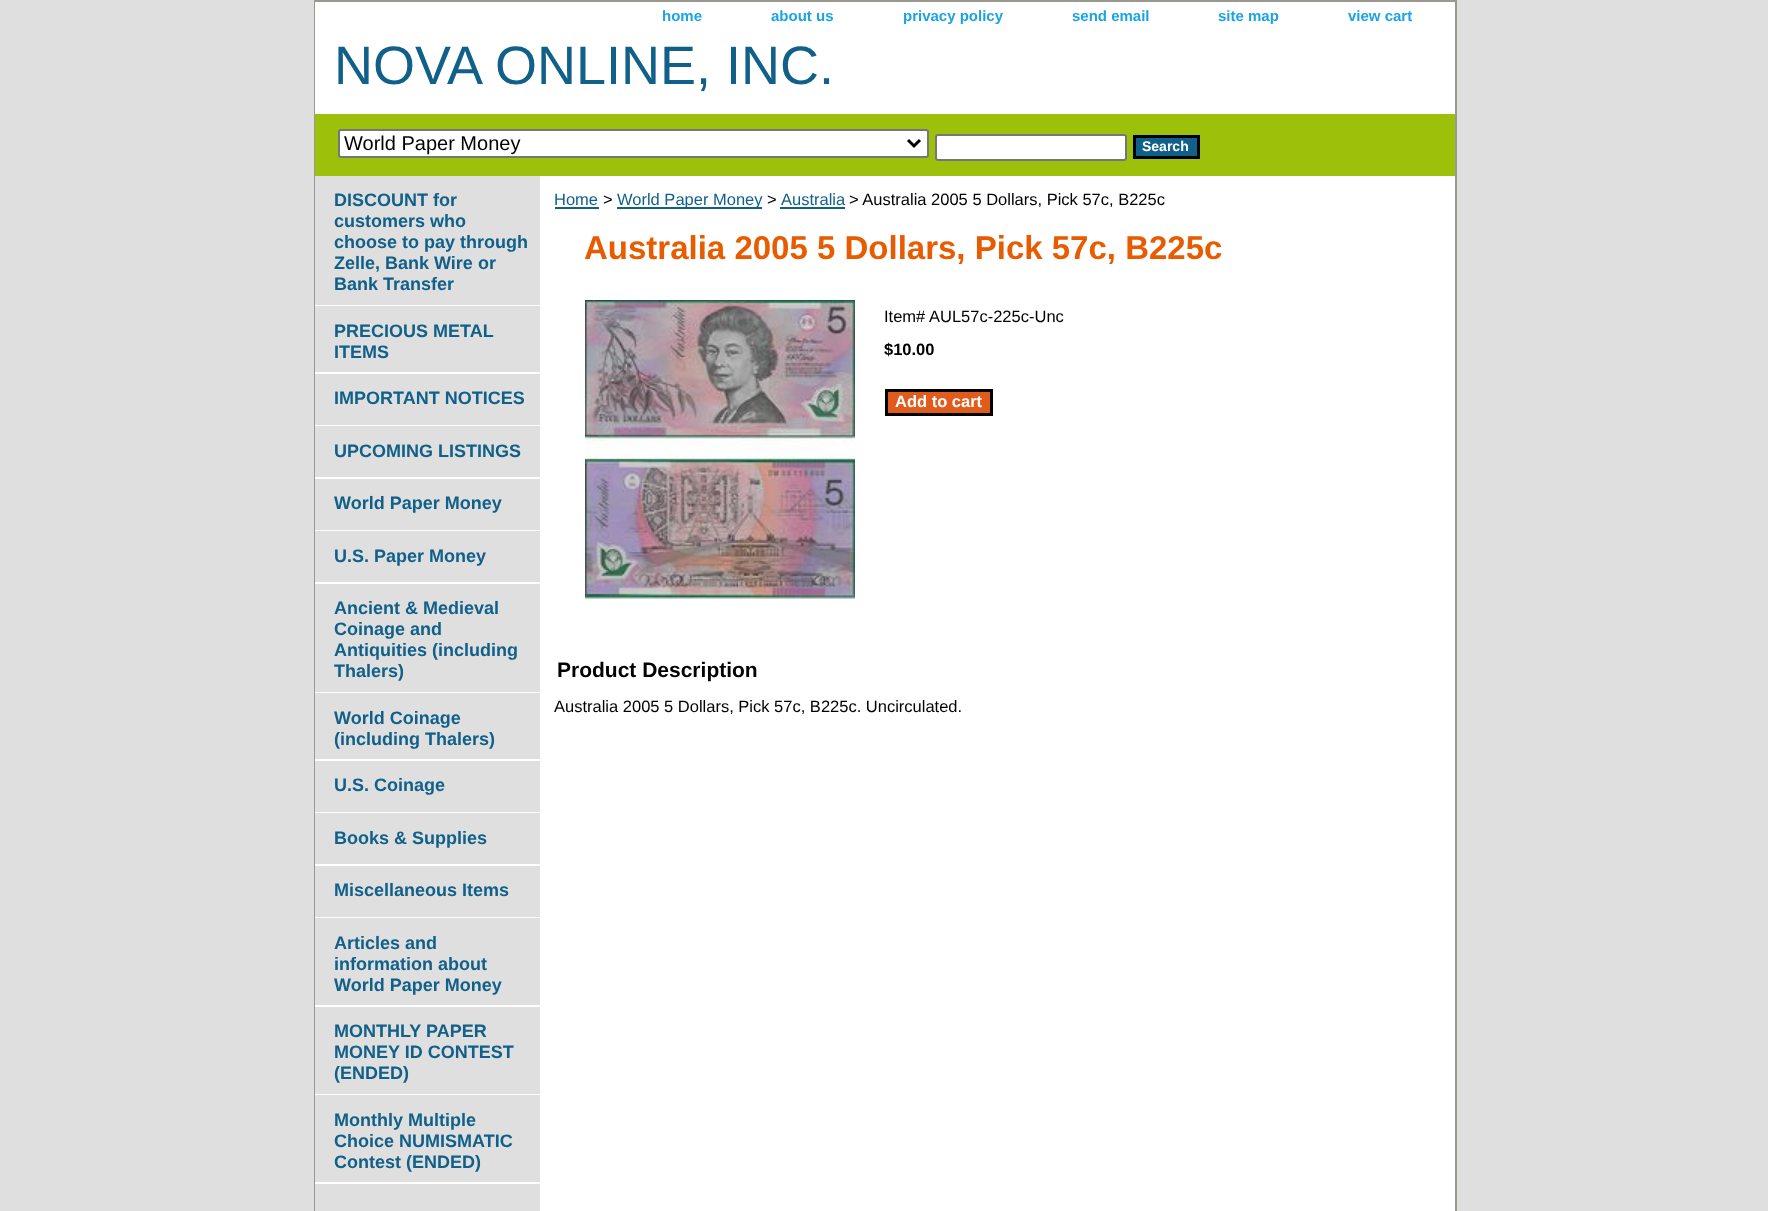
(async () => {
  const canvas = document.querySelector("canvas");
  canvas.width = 1768;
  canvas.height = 1211;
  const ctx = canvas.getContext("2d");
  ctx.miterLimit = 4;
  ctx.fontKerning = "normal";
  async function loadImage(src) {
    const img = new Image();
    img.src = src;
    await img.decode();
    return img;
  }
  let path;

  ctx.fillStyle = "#dfdfdf";
  ctx.fillRect(0, 0, 1768, 1211);
  ctx.strokeStyle = "#9a9990";
  ctx.lineWidth = 2;
  ctx.strokeRect(315, 1, 1141, 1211);
  ctx.fillStyle = "#ffffff";
  ctx.fillRect(315, 2, 1140, 112);
  ctx.fillStyle = "#9dc00b";
  ctx.fillRect(315, 114, 1140, 62);
  ctx.fillStyle = "#ffffff";
  ctx.beginPath();
  ctx.roundRect(339, 130, 589, 27, 2);
  ctx.fill();
  ctx.strokeStyle = "#767676";
  ctx.stroke();
  path = new Path2D("M908 140L914 146L920 140");
  ctx.strokeStyle = "#000000";
  ctx.lineWidth = 3;
  ctx.stroke(path);
  ctx.beginPath();
  ctx.roundRect(936, 135, 190, 25, 2);
  ctx.fill();
  ctx.strokeStyle = "#767676";
  ctx.lineWidth = 2;
  ctx.stroke();
  ctx.fillStyle = "#116089";
  ctx.beginPath();
  ctx.rect(1134.5, 136.5, 64, 21);
  ctx.fill();
  ctx.strokeStyle = "#000000";
  ctx.lineWidth = 3;
  ctx.stroke();
  for (const [x, y, w, h, color] of [
    [540, 176, 915, 1035, "#ffffff"],
    [315, 176, 1, 1035, "#dfdfdf"],
    [315, 305, 225, 1, "#ffffff"],
    [315, 372, 225, 2, "#ffffff"],
    [315, 425, 225, 1, "#ffffff"],
    [315, 477, 225, 2, "#ffffff"],
    [315, 530, 225, 1, "#ffffff"],
    [315, 582, 225, 2, "#ffffff"],
    [315, 692, 225, 1, "#ffffff"],
    [315, 759, 225, 2, "#ffffff"],
    [315, 812, 225, 1, "#ffffff"],
    [315, 864, 225, 2, "#ffffff"],
    [315, 917, 225, 1, "#ffffff"],
    [315, 1005, 225, 2, "#ffffff"],
    [315, 1094, 225, 1, "#ffffff"],
    [315, 1182, 225, 2, "#ffffff"],
    [555, 207, 44, 2, "#116089"],
    [617, 207, 145, 2, "#116089"],
    [780, 207, 65, 2, "#116089"],
  ]) {
    ctx.fillStyle = color;
    ctx.fillRect(x, y, w, h);
  }
  ctx.drawImage(await loadImage("img/1.png"), 585, 300, 270, 299);
  ctx.fillStyle = "#e05c1d";
  ctx.beginPath();
  ctx.rect(886.5, 390.5, 105, 24);
  ctx.fill();
  ctx.stroke();
  ctx.font = "bold 15px Liberation Sans";
  ctx.fillStyle = "#1ca3e3";
  for (const [text, x, y] of [
    ["home", 662, 21],
    ["about us", 771, 21],
    ["privacy policy", 903, 21],
    ["send email", 1072, 21],
    ["site map", 1218, 21],
    ["view cart", 1348, 21],
  ]) {
    ctx.fillText(text, x, y);
  }
  ctx.font = "54px Liberation Sans";
  ctx.fillStyle = "#116089";
  ctx.fillText("NOVA ONLINE, INC.", 334, 84);
  ctx.font = "20px Liberation Sans";
  ctx.fillStyle = "#000000";
  ctx.fillText("World Paper Money", 344, 150);
  ctx.font = "bold 14px Liberation Sans";
  ctx.fillStyle = "#ffffff";
  ctx.fillText("Search", 1142, 151);
  ctx.font = "bold 18px Liberation Sans";
  ctx.fillStyle = "#116089";
  for (const [text, x, y] of [
    ["DISCOUNT for", 334, 206],
    ["customers who", 334, 227],
    ["choose to pay through", 334, 248],
    ["Zelle, Bank Wire or", 334, 269],
    ["Bank Transfer", 334, 290],
    ["PRECIOUS METAL", 334, 337],
    ["ITEMS", 334, 358],
    ["IMPORTANT NOTICES", 334, 404],
    ["UPCOMING LISTINGS", 334, 457],
    ["World Paper Money", 334, 509],
    ["U.S. Paper Money", 334, 562],
    ["Ancient & Medieval", 334, 614],
    ["Coinage and", 334, 635],
    ["Antiquities (including", 334, 656],
    ["Thalers)", 334, 677],
    ["World Coinage", 334, 724],
    ["(including Thalers)", 334, 745],
    ["U.S. Coinage", 334, 791],
    ["Books & Supplies", 334, 844],
    ["Miscellaneous Items", 334, 896],
    ["Articles and", 334, 949],
    ["information about", 334, 970],
    ["World Paper Money", 334, 991],
    ["MONTHLY PAPER", 334, 1037],
    ["MONEY ID CONTEST", 334, 1058],
    ["(ENDED)", 334, 1079],
    ["Monthly Multiple", 334, 1126],
    ["Choice NUMISMATIC", 334, 1147],
    ["Contest (ENDED)", 334, 1168],
  ]) {
    ctx.fillText(text, x, y);
  }
  ctx.font = "16.5px Liberation Sans";
  ctx.fillText("Home", 554, 205);
  ctx.fillStyle = "#000000";
  ctx.fillText(">", 603, 205);
  ctx.fillStyle = "#116089";
  ctx.fillText("World Paper Money", 617, 205);
  ctx.fillStyle = "#000000";
  ctx.fillText(">", 767, 205);
  ctx.fillStyle = "#116089";
  ctx.fillText("Australia", 781, 205);
  ctx.fillStyle = "#000000";
  ctx.fillText("> Australia 2005 5 Dollars, Pick 57c, B225c", 849, 205);
  ctx.font = "bold 33px Liberation Sans";
  ctx.fillStyle = "#e85c01";
  ctx.fillText("Australia 2005 5 Dollars, Pick 57c, B225c", 584, 259);
  ctx.font = "16.5px Liberation Sans";
  ctx.fillStyle = "#000000";
  ctx.fillText("Item#", 884, 322);
  ctx.fillText("AUL57c-225c-Unc", 929, 322);
  ctx.font = "bold 16.5px Liberation Sans";
  ctx.fillText("$10.00", 884, 355);
  ctx.fillStyle = "#ffffff";
  ctx.fillText("Add to cart", 895, 407);
  ctx.font = "bold 21px Liberation Sans";
  ctx.fillStyle = "#000000";
  ctx.fillText("Product Description", 557, 677);
  ctx.font = "16.5px Liberation Sans";
  ctx.fillText("Australia 2005 5 Dollars, Pick 57c, B225c. Uncirculated.", 554, 712);
})();
